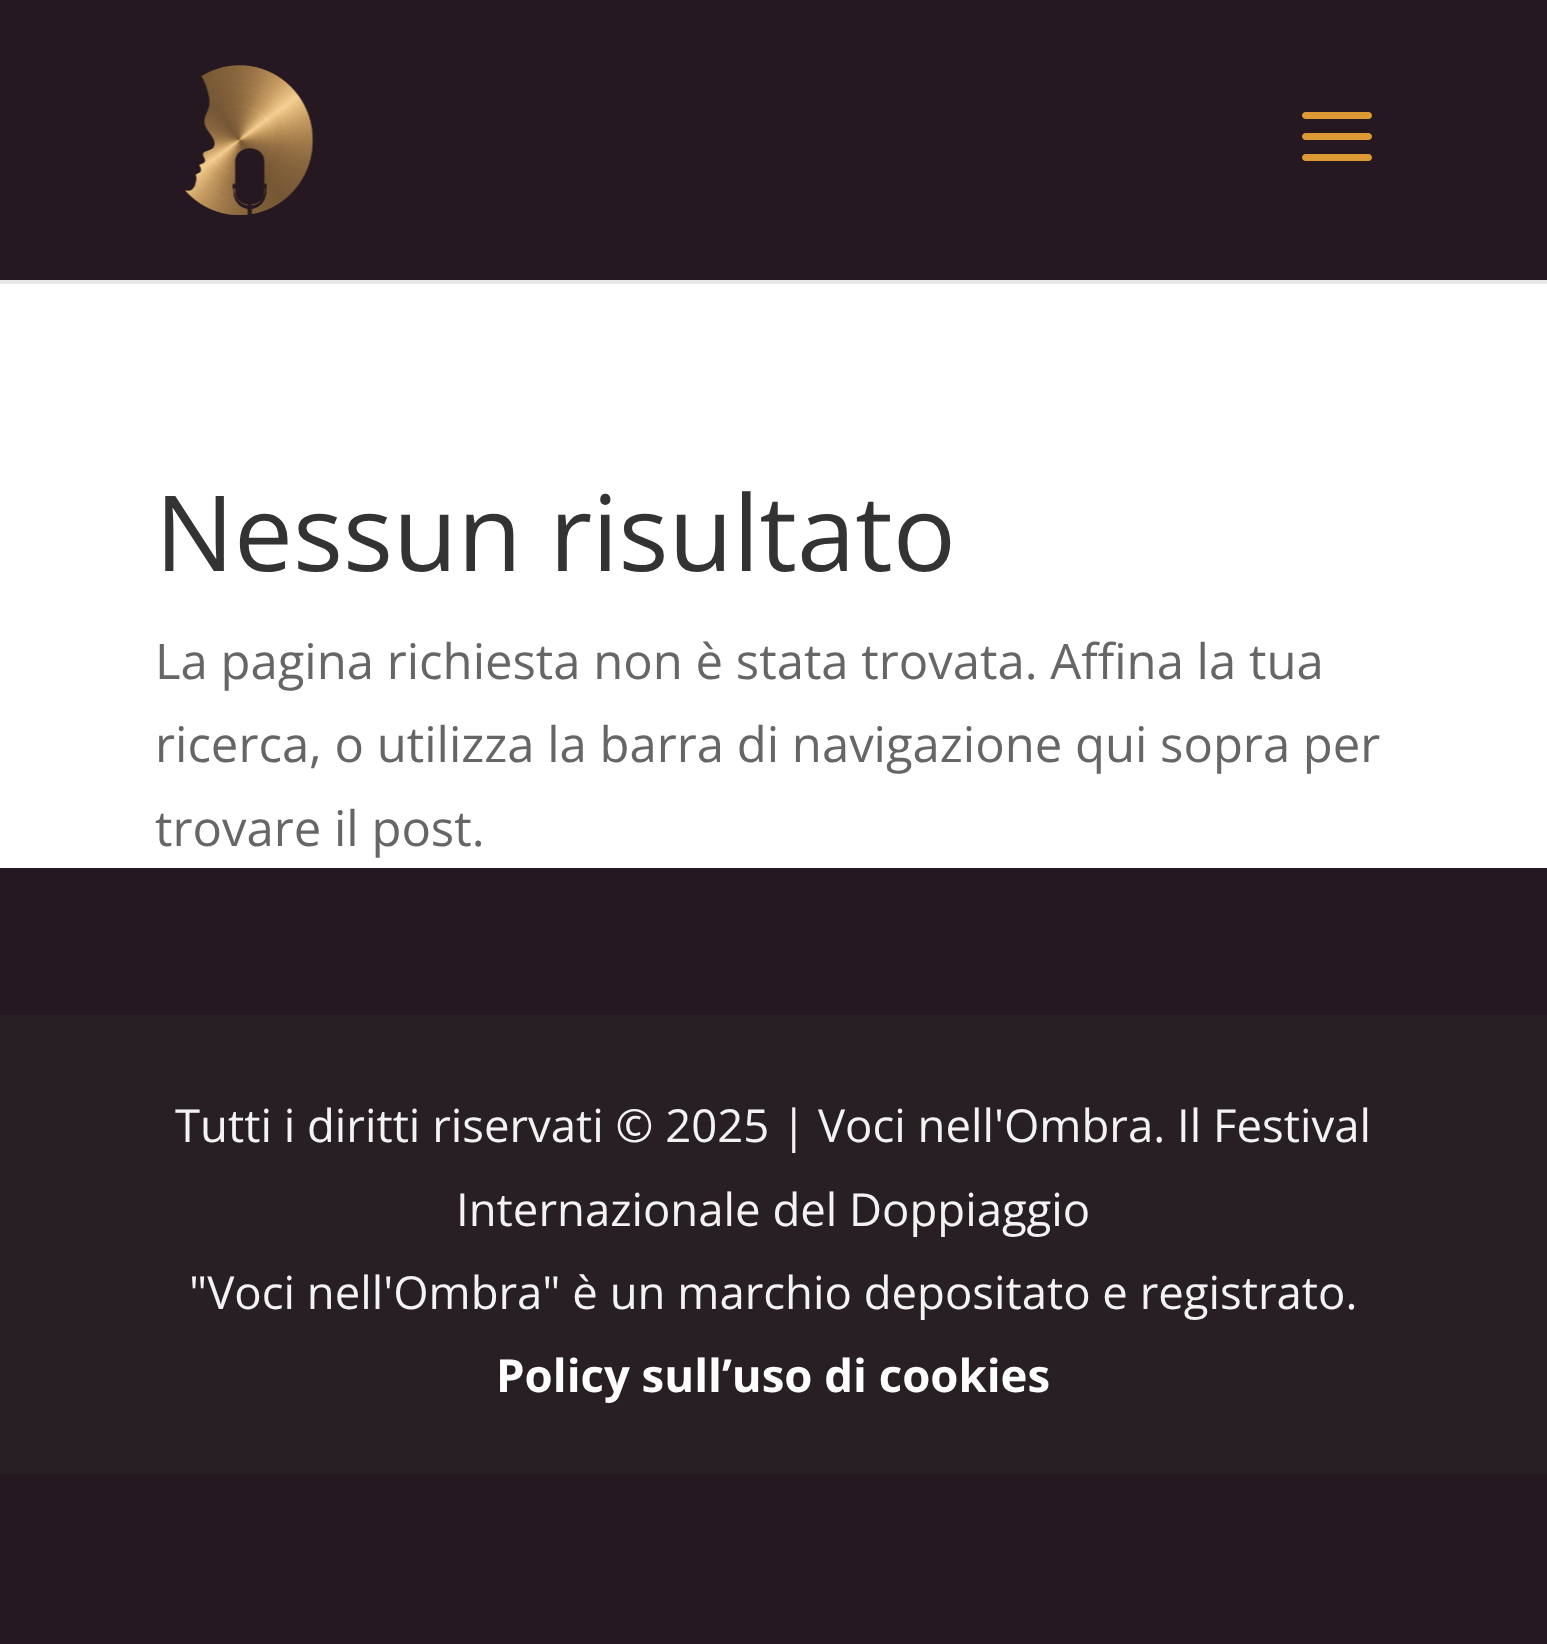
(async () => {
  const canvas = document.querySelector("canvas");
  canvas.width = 1547;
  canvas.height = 1644;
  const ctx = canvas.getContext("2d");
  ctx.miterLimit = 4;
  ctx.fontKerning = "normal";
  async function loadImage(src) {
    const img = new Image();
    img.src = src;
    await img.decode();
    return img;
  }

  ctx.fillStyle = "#251820";
  ctx.fillRect(0, 0, 1547, 1644);
  ctx.fillStyle = "#e6e6e6";
  ctx.fillRect(0, 280, 1547, 4);
  ctx.drawImage(await loadImage("img/1.png"), 184, 65, 130, 150);
  ctx.drawImage(await loadImage("img/2.png"), 1302, 112, 70, 49);
  ctx.fillStyle = "#ffffff";
  ctx.fillRect(0, 284, 1547, 584);
  ctx.fillStyle = "#281f25";
  ctx.fillRect(0, 1015, 1547, 459);
  ctx.font = "105px Open Sans";
  ctx.fillStyle = "#333333";
  ctx.fillText("Nessun risultato", 155, 571);
  ctx.font = "49px Open Sans";
  ctx.fillStyle = "#666666";
  for (const [text, x, y] of [
    ["La pagina richiesta non è stata trovata. Affina la tua", 155, 679],
    ["ricerca, o utilizza la barra di navigazione qui sopra per", 155, 762],
    ["trovare il post.", 155, 846],
  ]) {
    ctx.fillText(text, x, y);
  }
  ctx.font = "45.5px Open Sans";
  ctx.fillStyle = "#f3f3f3";
  for (const [text, x, y] of [
    ["Tutti i diritti riservati © 2025 | Voci nell'Ombra. Il Festival", 175, 1142],
    ["Internazionale del Doppiaggio", 456, 1226],
    ["\"Voci nell'Ombra\" è un marchio depositato e registrato.", 189, 1309],
  ]) {
    ctx.fillText(text, x, y);
  }
  ctx.font = "bold 45.5px Open Sans";
  ctx.fillStyle = "#ffffff";
  ctx.fillText("Policy sull’uso di cookies", 496, 1392);
})();
